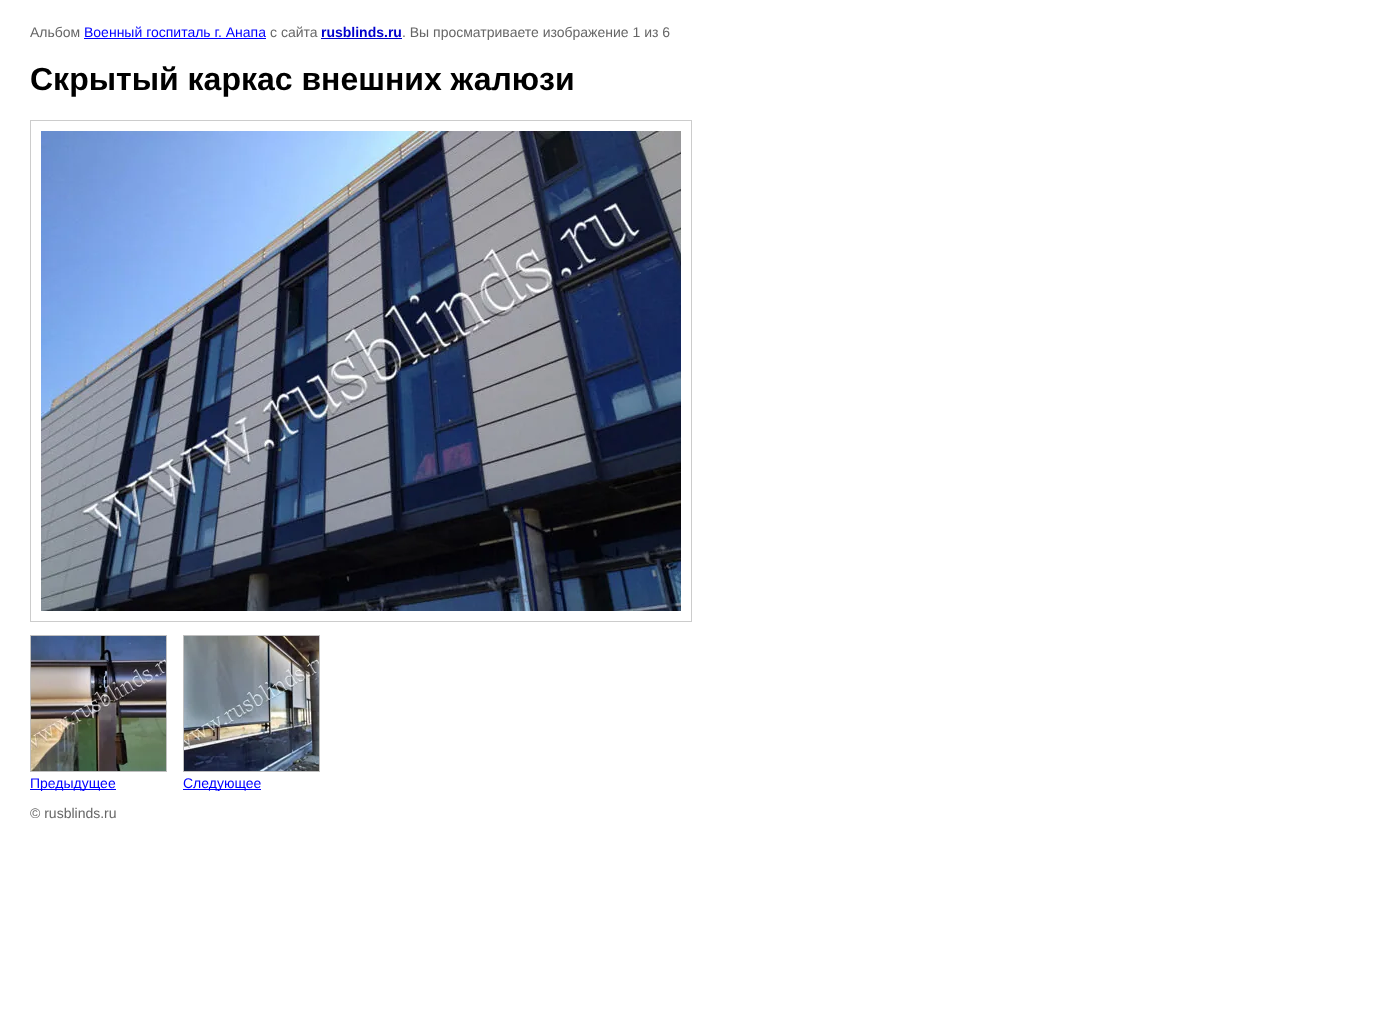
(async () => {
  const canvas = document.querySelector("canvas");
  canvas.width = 1388;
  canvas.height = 1025;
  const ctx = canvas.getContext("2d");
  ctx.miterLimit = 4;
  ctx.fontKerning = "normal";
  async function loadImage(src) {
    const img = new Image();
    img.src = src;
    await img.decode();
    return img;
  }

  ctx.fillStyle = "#ffffff";
  ctx.fillRect(0, 0, 1388, 1025);
  ctx.fillStyle = "#0000ff";
  ctx.fillRect(84, 38, 182, 1);
  ctx.fillStyle = "#0000cc";
  ctx.fillRect(321, 38, 81, 1);
  ctx.strokeStyle = "#cccccc";
  ctx.strokeRect(30.5, 120.5, 661, 501);
  ctx.drawImage(await loadImage("img/1.png"), 41, 131, 640, 480);
  ctx.strokeStyle = "#c0c0c0";
  ctx.strokeRect(30.5, 635.5, 136, 136);
  ctx.drawImage(await loadImage("img/2.png"), 31, 636, 135, 135);
  ctx.fillStyle = "#0000ff";
  ctx.fillRect(30, 789, 86, 1);
  ctx.strokeRect(183.5, 635.5, 136, 136);
  ctx.drawImage(await loadImage("img/3.png"), 184, 636, 135, 135);
  ctx.fillRect(183, 789, 78, 1);
  ctx.font = "14px Liberation Sans";
  ctx.fillStyle = "#666666";
  ctx.fillText("Альбом", 30, 37);
  ctx.fillStyle = "#0000ff";
  ctx.fillText("Военный госпиталь г. Анапа", 84, 37);
  ctx.fillStyle = "#666666";
  ctx.fillText("с сайта", 270, 37);
  ctx.font = "bold 14px Liberation Sans";
  ctx.fillStyle = "#0000cc";
  ctx.fillText("rusblinds.ru", 321, 37);
  ctx.font = "14px Liberation Sans";
  ctx.fillStyle = "#666666";
  ctx.fillText(". Вы просматриваете изображение 1 из 6", 402, 37);
  ctx.font = "bold 32px Liberation Sans";
  ctx.fillStyle = "#000000";
  ctx.fillText("Скрытый каркас внешних жалюзи", 30, 90);
  ctx.font = "14px Liberation Sans";
  ctx.fillStyle = "#0000ff";
  ctx.fillText("Предыдущее", 30, 788);
  ctx.fillText("Следующее", 183, 788);
  ctx.fillStyle = "#666666";
  ctx.fillText("© rusblinds.ru", 30, 818);
})();
